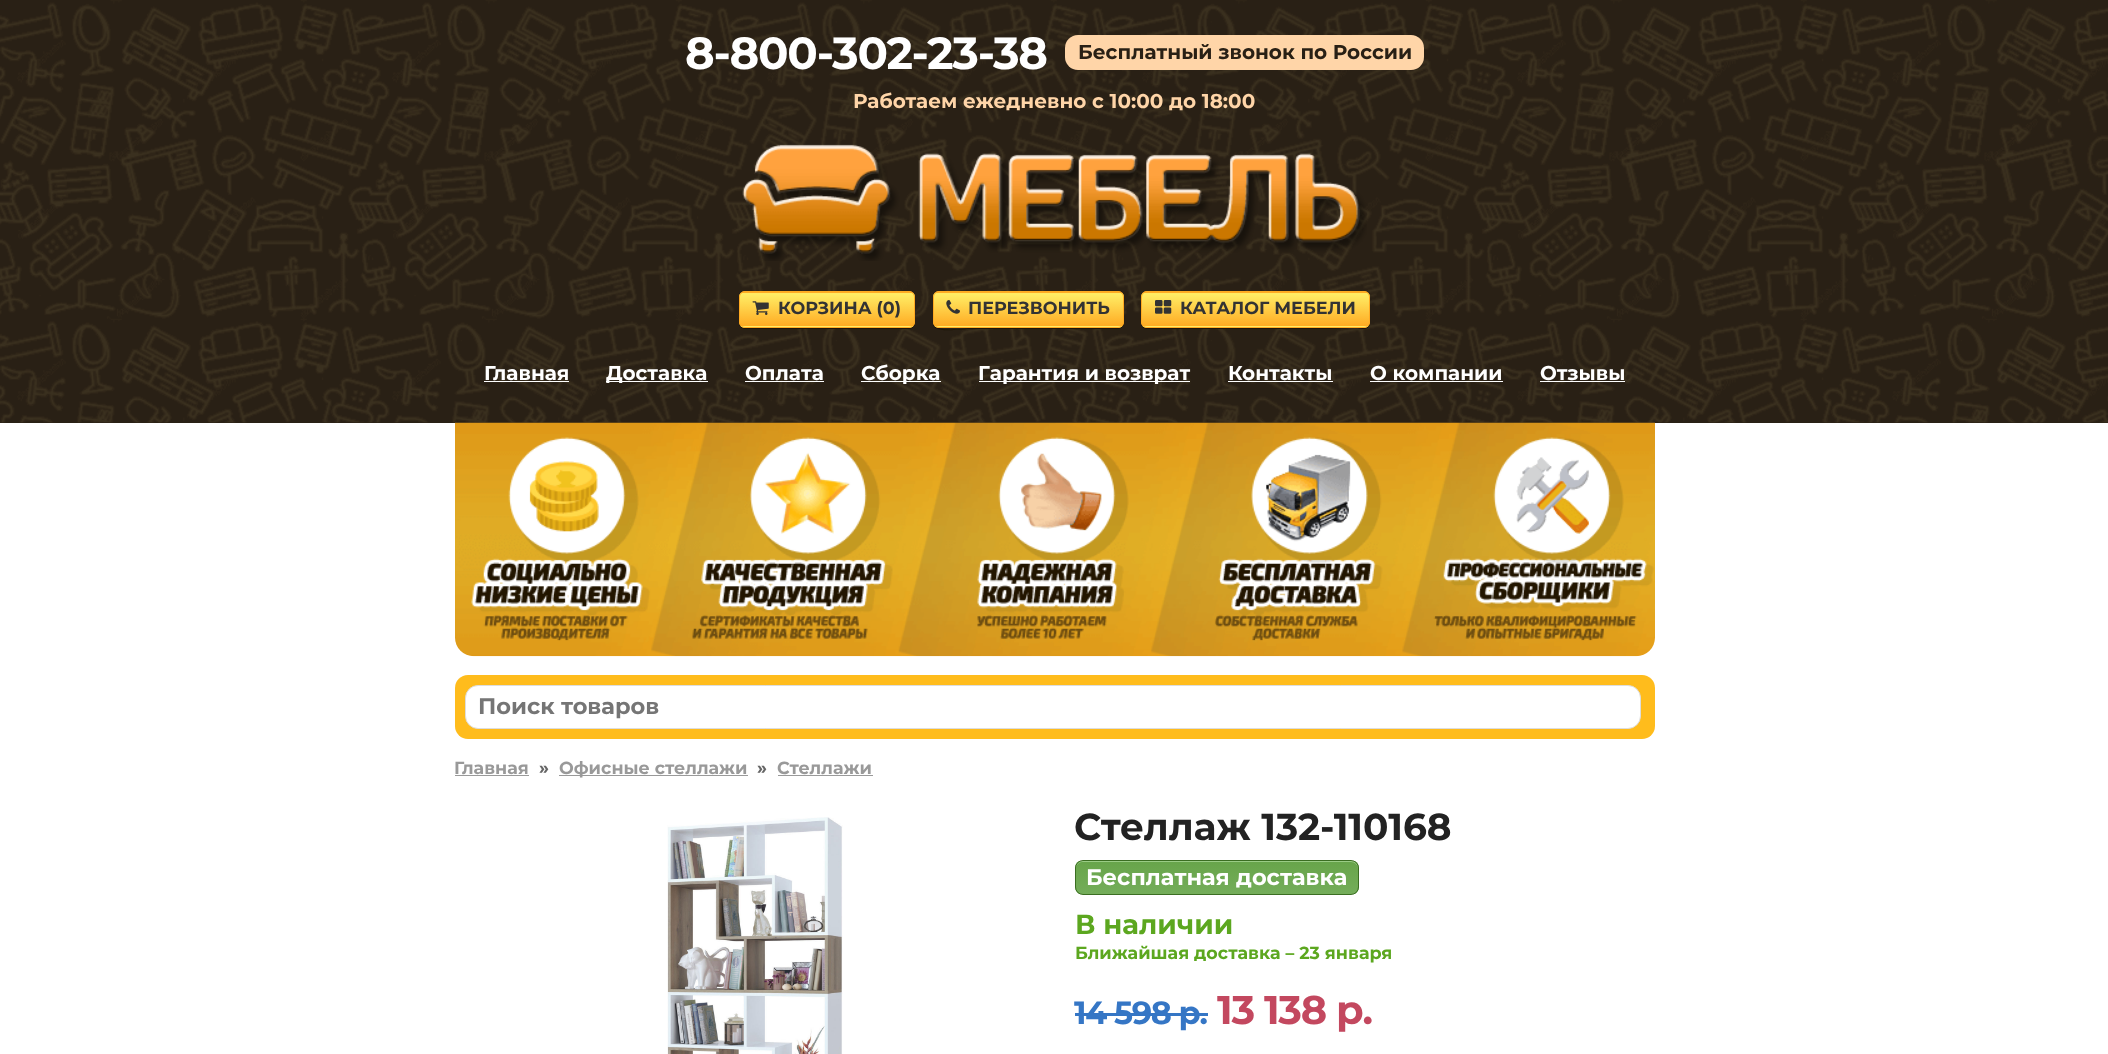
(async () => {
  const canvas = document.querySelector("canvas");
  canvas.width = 2108;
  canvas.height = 1054;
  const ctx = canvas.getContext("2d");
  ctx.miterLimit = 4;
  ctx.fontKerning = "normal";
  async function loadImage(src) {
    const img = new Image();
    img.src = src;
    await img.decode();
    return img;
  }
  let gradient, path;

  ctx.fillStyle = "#ffffff";
  ctx.fillRect(0, 0, 2108, 1054);
  ctx.fillStyle = "#292015";
  ctx.fillRect(0, 422, 2108, 1);
  ctx.drawImage(await loadImage("img/1.png"), 0, 0, 2108, 423);
  ctx.fillStyle = "#ffd5a8";
  ctx.beginPath();
  ctx.roundRect(1065, 35, 359, 35, 13);
  ctx.fill();
  ctx.drawImage(await loadImage("img/2.png"), 742, 144, 625, 117);
  ctx.fillStyle = "#1d1408";
  path = new Path2D("M739 323C739 326 742 329 745 329H909C912 329 915 326 915 323V321C915 325 912 328 909 328H745C742 328 740 326 739 323Z");
  ctx.fill(path);
  ctx.save();
  ctx.beginPath();
  ctx.roundRect(739, 291, 176, 37, 6);
  ctx.clip();
  gradient = ctx.createLinearGradient(827, 259, 827, 293);
  gradient.addColorStop(0.05, "#ffec64");
  gradient.addColorStop(1, "#ffab23");
  ctx.fillStyle = gradient;
  ctx.fillRect(739, 291, 176, 2);
  gradient = ctx.createLinearGradient(827, 293, 827, 326);
  gradient.addColorStop(0.05, "#ffec64");
  gradient.addColorStop(1, "#ffab23");
  ctx.fillStyle = gradient;
  ctx.fillRect(739, 293, 176, 33);
  gradient = ctx.createLinearGradient(827, 326, 827, 360);
  gradient.addColorStop(0.05, "#ffec64");
  gradient.addColorStop(1, "#ffab23");
  ctx.fillStyle = gradient;
  ctx.fillRect(739, 326, 176, 2);
  ctx.restore();
  ctx.beginPath();
  ctx.roundRect(739.5, 291.5, 175, 36, 5.5);
  ctx.strokeStyle = "#ffaa22";
  ctx.stroke();
  ctx.drawImage(await loadImage("img/3.png"), 752, 301, 17, 14);
  path = new Path2D("M933 324C934 334 960 329 969 329H1118C1125 329 1124 320 1124 315V297V313C1124 318 1125 327 1118 328H969C967 328 937 333 933 324Z");
  ctx.fill(path);
  ctx.save();
  ctx.beginPath();
  ctx.roundRect(933, 291, 191, 37, 6);
  ctx.clip();
  gradient = ctx.createLinearGradient(1028, 259, 1028, 293);
  gradient.addColorStop(0.05, "#ffec64");
  gradient.addColorStop(1, "#ffab23");
  ctx.fillStyle = gradient;
  ctx.fillRect(933, 291, 191, 2);
  gradient = ctx.createLinearGradient(1028, 293, 1028, 326);
  gradient.addColorStop(0.05, "#ffec64");
  gradient.addColorStop(1, "#ffab23");
  ctx.fillStyle = gradient;
  ctx.fillRect(933, 293, 191, 33);
  gradient = ctx.createLinearGradient(1028, 326, 1028, 360);
  gradient.addColorStop(0.05, "#ffec64");
  gradient.addColorStop(1, "#ffab23");
  ctx.fillStyle = gradient;
  ctx.fillRect(933, 326, 191, 2);
  ctx.restore();
  ctx.beginPath();
  ctx.roundRect(933.5, 291.5, 190, 36, 5.5);
  ctx.stroke();
  ctx.drawImage(await loadImage("img/4.png"), 946, 300, 14, 14);
  path = new Path2D("M1141 297V315C1141 320 1140 329 1147 329H1364C1369 329 1370 325 1370 321C1370 333 1340 328 1328 328H1148C1140 327 1141 318 1141 313Z");
  ctx.fill(path);
  ctx.save();
  ctx.beginPath();
  ctx.roundRect(1141, 291, 229, 37, 6);
  ctx.clip();
  gradient = ctx.createLinearGradient(1256, 259, 1256, 293);
  gradient.addColorStop(0.05, "#ffec64");
  gradient.addColorStop(1, "#ffab23");
  ctx.fillStyle = gradient;
  ctx.fillRect(1141, 291, 229, 2);
  gradient = ctx.createLinearGradient(1256, 293, 1256, 326);
  gradient.addColorStop(0.05, "#ffec64");
  gradient.addColorStop(1, "#ffab23");
  ctx.fillStyle = gradient;
  ctx.fillRect(1141, 293, 229, 33);
  gradient = ctx.createLinearGradient(1256, 326, 1256, 360);
  gradient.addColorStop(0.05, "#ffec64");
  gradient.addColorStop(1, "#ffab23");
  ctx.fillStyle = gradient;
  ctx.fillRect(1141, 326, 229, 2);
  ctx.restore();
  ctx.beginPath();
  ctx.roundRect(1141.5, 291.5, 228, 36, 5.5);
  ctx.stroke();
  ctx.drawImage(await loadImage("img/5.png"), 1155, 300, 17, 14);
  for (const [x, y, w, h, color] of [
    [484, 381, 85, 1, "#ffffff"],
    [606, 381, 102, 1, "#ffffff"],
    [745, 381, 79, 1, "#ffffff"],
    [861, 381, 80, 1, "#ffffff"],
    [979, 381, 211, 1, "#ffffff"],
    [1228, 381, 105, 1, "#ffffff"],
    [1370, 381, 133, 1, "#ffffff"],
    [1540, 381, 85, 1, "#ffffff"],
  ]) {
    ctx.fillStyle = color;
    ctx.fillRect(x, y, w, h);
  }
  ctx.drawImage(await loadImage("img/6.png"), 455, 422, 1200, 235);
  ctx.fillStyle = "#ffbc1c";
  ctx.beginPath();
  ctx.roundRect(455, 675, 1200, 64, 13);
  ctx.fill();
  ctx.fillStyle = "#ffffff";
  ctx.beginPath();
  ctx.roundRect(465.5, 685.5, 1175, 43, 12.5);
  ctx.fill();
  ctx.strokeStyle = "#dddddd";
  ctx.stroke();
  for (const [x, y, w, h, color] of [
    [455, 775, 74, 1, "#999999"],
    [559, 775, 189, 1, "#999999"],
    [778, 775, 95, 1, "#999999"],
  ]) {
    ctx.fillStyle = color;
    ctx.fillRect(x, y, w, h);
  }
  ctx.drawImage(await loadImage("img/7.png"), 667, 817, 176, 237);
  ctx.save();
  ctx.beginPath();
  ctx.roundRect(1075, 860, 284, 35, 8);
  ctx.clip();
  gradient = ctx.createLinearGradient(1217, 861, 1217, 894);
  gradient.addColorStop(0.05, "#68a54b");
  gradient.addColorStop(1, "#74ad5a");
  ctx.fillStyle = gradient;
  ctx.fillRect(1075, 861, 284, 33);
  ctx.restore();
  ctx.fillStyle = "#9acc85";
  path = new Path2D("M1082 862H1351C1355 862 1358 865 1358 869V867C1358 864 1355 861 1352 861H1082C1079 861 1076 864 1076 867V869C1076 865 1079 862 1082 862Z");
  ctx.fill(path);
  ctx.beginPath();
  ctx.roundRect(1075.5, 860.5, 283, 34, 7.5);
  ctx.strokeStyle = "#3b6e22";
  ctx.stroke();
  ctx.drawImage(await loadImage("img/8.png"), 1076, 914, 315, 49);
  ctx.fillStyle = "#3576c5";
  ctx.fillRect(1075, 1013, 133, 3);
  ctx.letterSpacing = "-1.25px";
  ctx.font = "bold 45px Montserrat";
  ctx.fillStyle = "#ffffff";
  ctx.fillText("8-800-302-23-38", 685, 69);
  ctx.letterSpacing = "0px";
  ctx.font = "bold 20px Montserrat";
  ctx.fillStyle = "#292015";
  ctx.fillText("Бесплатный звонок по России", 1078, 59);
  ctx.fillStyle = "#ffd5a8";
  ctx.fillText("Работаем ежедневно с 10:00 до 18:00", 853, 108);
  ctx.font = "bold 17.5px Montserrat";
  ctx.fillStyle = "#333333";
  for (const [text, x, y] of [
    ["КОРЗИНА (0)", 778, 314],
    ["ПЕРЕЗВОНИТЬ", 968, 314],
    ["КАТАЛОГ МЕБЕЛИ", 1180, 314],
  ]) {
    ctx.fillText(text, x, y);
  }
  ctx.font = "bold 20px Montserrat";
  ctx.fillStyle = "#ffffff";
  for (const [text, x, y] of [
    ["Главная", 484, 380],
    ["Доставка", 606, 380],
    ["Оплата", 745, 380],
    ["Сборка", 861, 380],
    ["Гарантия и возврат", 978, 380],
    ["Контакты", 1228, 380],
    ["О компании", 1370, 380],
    ["Отзывы", 1540, 380],
  ]) {
    ctx.fillText(text, x, y);
  }
  ctx.font = "bold 22.5px Montserrat";
  ctx.fillStyle = "#757575";
  ctx.fillText("Поиск товаров", 478, 714);
  ctx.font = "bold 17.5px Montserrat";
  ctx.fillStyle = "#999999";
  ctx.fillText("Главная", 454, 774);
  ctx.fillStyle = "#666666";
  ctx.fillText("»", 539, 774);
  ctx.fillStyle = "#999999";
  ctx.fillText("Офисные стеллажи", 559, 774);
  ctx.fillStyle = "#666666";
  ctx.fillText("»", 757, 774);
  ctx.fillStyle = "#999999";
  ctx.fillText("Стеллажи", 777, 774);
  ctx.font = "bold 37.5px Montserrat";
  ctx.fillStyle = "#222222";
  ctx.fillText("Стеллаж 132-110168", 1074, 840);
  ctx.font = "bold 22.5px Montserrat";
  ctx.fillStyle = "#ffffff";
  ctx.fillText("Бесплатная доставка", 1086, 885);
  ctx.letterSpacing = "-1.25px";
  ctx.font = "bold 32px Montserrat";
  ctx.fillStyle = "#3576c5";
  ctx.fillText("14 598 р.", 1074, 1024);
  ctx.font = "bold 40px Montserrat";
  ctx.fillStyle = "#c3485f";
  ctx.fillText("13 138 р.", 1217, 1024);
})();
